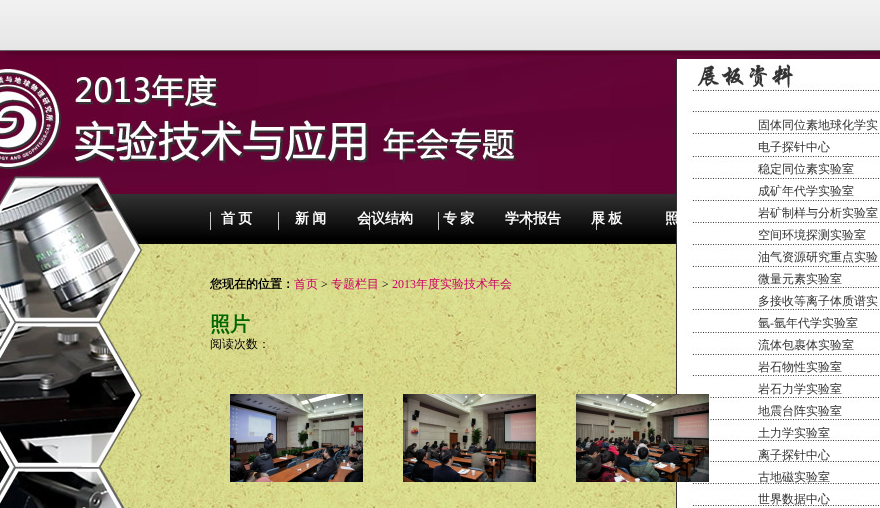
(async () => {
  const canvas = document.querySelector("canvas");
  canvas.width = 880;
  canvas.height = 508;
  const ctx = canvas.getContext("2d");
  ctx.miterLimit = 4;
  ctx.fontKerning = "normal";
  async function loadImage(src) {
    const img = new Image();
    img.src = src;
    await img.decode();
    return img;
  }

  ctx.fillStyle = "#ffffff";
  ctx.fillRect(0, 0, 880, 508);
  ctx.drawImage(await loadImage("img/1.png"), 0, 59, 880, 449);
  ctx.drawImage(await loadImage("img/2.png"), 0, 0, 880, 48);
  ctx.drawImage(await loadImage("img/3.png"), 0, 48, 880, 11);
  ctx.drawImage(await loadImage("img/4.png"), 230, 394, 133, 88);
  ctx.drawImage(await loadImage("img/5.png"), 403, 394, 133, 88);
  ctx.drawImage(await loadImage("img/6.png"), 576, 394, 133, 88);
  ctx.wordSpacing = "-1px";
  ctx.font = "bold 14px WenQuanYi Zen Hei";
  ctx.fillText("首 页", 221, 223);
  ctx.fillText("新 闻", 295, 223);
  ctx.wordSpacing = "0px";
  ctx.fillText("会议结构", 357, 223);
  ctx.wordSpacing = "-1px";
  ctx.fillText("专 家", 443, 223);
  ctx.wordSpacing = "0px";
  ctx.fillText("学术报告", 505, 223);
  ctx.wordSpacing = "-1px";
  ctx.fillText("展 板", 591, 223);
  ctx.fillText("照", 665, 223);
  ctx.wordSpacing = "0px";
  ctx.font = "bold 12px WenQuanYi Zen Hei";
  ctx.fillStyle = "#000000";
  ctx.fillText("您现在的位置：", 210, 288);
  ctx.font = "500 12px WenQuanYi Zen Hei";
  ctx.fillStyle = "#cc0066";
  ctx.fillText("首页", 294, 288);
  ctx.font = "12px Liberation Serif";
  ctx.fillStyle = "#000000";
  ctx.fillText(">", 321, 288);
  ctx.font = "500 12px WenQuanYi Zen Hei";
  ctx.fillStyle = "#cc0066";
  ctx.fillText("专题栏目", 331, 288);
  ctx.font = "12px Liberation Serif";
  ctx.fillStyle = "#000000";
  ctx.fillText(">", 382, 288);
  ctx.fillStyle = "#cc0066";
  ctx.fillText("2013", 392, 288);
  ctx.font = "500 12px WenQuanYi Zen Hei";
  ctx.fillText("年度实验技术年会", 416, 288);
  ctx.font = "bold 20px WenQuanYi Zen Hei";
  ctx.fillStyle = "#006600";
  ctx.fillText("照片", 210, 331);
  ctx.font = "500 12px WenQuanYi Zen Hei";
  ctx.fillStyle = "#000000";
  ctx.fillText("阅读次数：", 210, 348);
  ctx.fillStyle = "#333333";
  for (const [text, x, y] of [
    ["固体同位素地球化学实", 758, 129],
    ["电子探针中心", 758, 151],
    ["稳定同位素实验室", 758, 173],
    ["成矿年代学实验室", 758, 195],
    ["岩矿制样与分析实验室", 758, 217],
    ["空间环境探测实验室", 758, 239],
    ["油气资源研究重点实验", 758, 261],
    ["微量元素实验室", 758, 283],
    ["多接收等离子体质谱实", 758, 305],
    ["氩", 758, 327],
  ]) {
    ctx.fillText(text, x, y);
  }
  ctx.font = "12px Liberation Serif";
  ctx.fillText("-", 770, 327);
  ctx.font = "500 12px WenQuanYi Zen Hei";
  for (const [text, x, y] of [
    ["氩年代学实验室", 774, 327],
    ["流体包裹体实验室", 758, 349],
    ["岩石物性实验室", 758, 371],
    ["岩石力学实验室", 758, 393],
    ["地震台阵实验室", 758, 415],
    ["土力学实验室", 758, 437],
    ["离子探针中心", 758, 459],
    ["古地磁实验室", 758, 481],
    ["世界数据中心", 758, 503],
  ]) {
    ctx.fillText(text, x, y);
  }
})();
